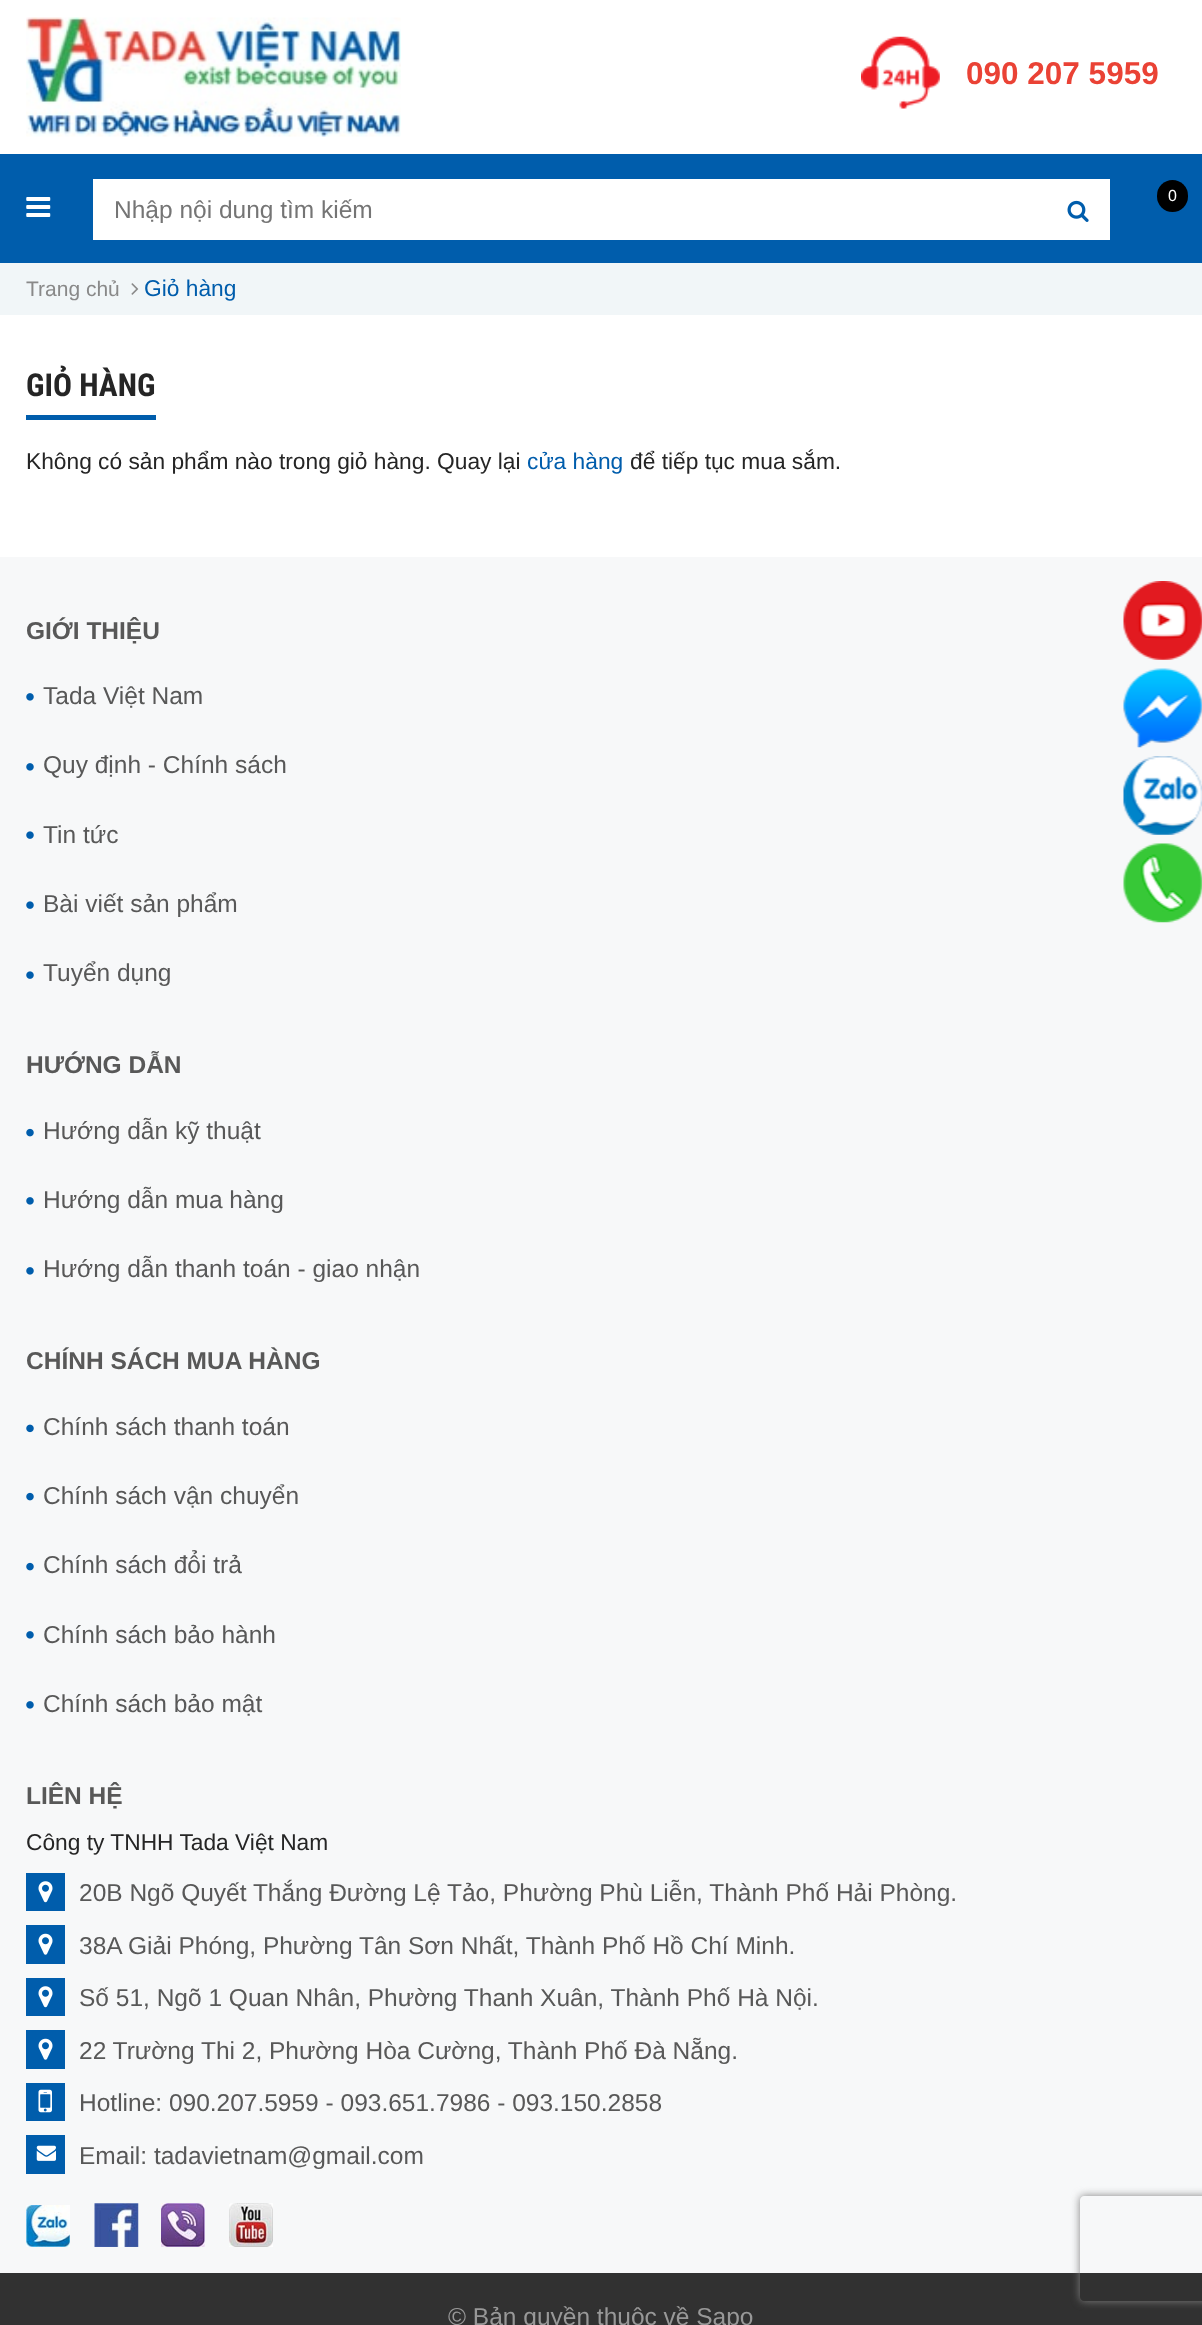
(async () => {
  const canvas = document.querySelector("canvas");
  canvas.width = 1202;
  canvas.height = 2325;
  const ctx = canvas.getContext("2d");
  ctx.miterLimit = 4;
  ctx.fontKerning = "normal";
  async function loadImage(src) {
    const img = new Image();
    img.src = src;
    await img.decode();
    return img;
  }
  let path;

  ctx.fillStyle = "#ffffff";
  ctx.fillRect(0, 0, 1202, 2325);
  ctx.drawImage(await loadImage("img/1.png"), 26, 17, 375, 120);
  ctx.drawImage(await loadImage("img/2.png"), 861, 36, 79, 73);
  ctx.fillStyle = "#005dac";
  ctx.fillRect(0, 154, 1202, 109);
  ctx.drawImage(await loadImage("img/3.png"), 26, 197, 25, 20);
  ctx.fillStyle = "#ffffff";
  ctx.fillRect(93, 179, 1017, 61);
  ctx.drawImage(await loadImage("img/4.png"), 1067, 200, 22, 22);
  ctx.fillStyle = "#000000";
  ctx.beginPath();
  ctx.roundRect(1157, 180, 31, 32, 15.5);
  ctx.fill();
  ctx.fillStyle = "#f1f6f8";
  ctx.fillRect(0, 263, 1202, 52);
  ctx.drawImage(await loadImage("img/5.png"), 131, 283, 8, 12);
  ctx.fillStyle = "#005dac";
  ctx.fillRect(26, 415, 130, 5);
  ctx.fillStyle = "#f7f8f9";
  ctx.fillRect(0, 557, 1202, 1716);
  ctx.drawImage(await loadImage("img/6.png"), 26, 693, 8, 8);
  ctx.drawImage(await loadImage("img/6.png"), 26, 763, 8, 8);
  ctx.drawImage(await loadImage("img/7.png"), 26, 831, 8, 8);
  ctx.drawImage(await loadImage("img/7.png"), 26, 901, 8, 8);
  ctx.drawImage(await loadImage("img/7.png"), 26, 971, 8, 8);
  ctx.drawImage(await loadImage("img/8.png"), 26, 1128, 8, 9);
  ctx.drawImage(await loadImage("img/6.png"), 26, 1197, 8, 8);
  ctx.drawImage(await loadImage("img/6.png"), 26, 1267, 8, 8);
  ctx.drawImage(await loadImage("img/9.png"), 26, 1424, 8, 9);
  ctx.drawImage(await loadImage("img/8.png"), 26, 1492, 8, 9);
  ctx.drawImage(await loadImage("img/8.png"), 26, 1562, 8, 9);
  ctx.drawImage(await loadImage("img/6.png"), 26, 1631, 8, 8);
  ctx.drawImage(await loadImage("img/6.png"), 26, 1701, 8, 8);
  ctx.fillStyle = "#005dac";
  ctx.fillRect(26, 1873, 39, 38);
  ctx.drawImage(await loadImage("img/10.png"), 38, 1881, 15, 22);
  ctx.fillRect(26, 1925, 39, 39);
  ctx.drawImage(await loadImage("img/11.png"), 38, 1933, 15, 22);
  ctx.fillRect(26, 1978, 39, 38);
  ctx.drawImage(await loadImage("img/10.png"), 38, 1986, 15, 22);
  ctx.fillRect(26, 2030, 39, 39);
  ctx.drawImage(await loadImage("img/11.png"), 38, 2038, 15, 22);
  ctx.fillRect(26, 2083, 39, 38);
  ctx.drawImage(await loadImage("img/12.png"), 38, 2089, 14, 24);
  ctx.fillRect(26, 2135, 39, 39);
  ctx.drawImage(await loadImage("img/13.png"), 36, 2145, 20, 16);
  ctx.drawImage(await loadImage("img/14.png"), 26, 2205, 44, 42);
  ctx.drawImage(await loadImage("img/15.png"), 94, 2203, 45, 44);
  ctx.drawImage(await loadImage("img/16.png"), 161, 2203, 44, 44);
  ctx.drawImage(await loadImage("img/17.png"), 229, 2203, 44, 44);
  ctx.fillStyle = "#313131";
  ctx.fillRect(0, 2273, 1202, 52);
  ctx.drawImage(await loadImage("img/18.png"), 1123, 581, 79, 79);
  ctx.drawImage(await loadImage("img/19.png"), 1123, 668, 79, 80);
  ctx.drawImage(await loadImage("img/20.png"), 1123, 756, 79, 79);
  ctx.drawImage(await loadImage("img/21.png"), 1123, 843, 79, 80);
  ctx.save();
  path = new Path2D("M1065 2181H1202V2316H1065ZM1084 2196H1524C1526 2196 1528 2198 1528 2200V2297C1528 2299 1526 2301 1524 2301H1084C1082 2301 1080 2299 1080 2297V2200C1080 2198 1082 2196 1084 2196Z");
  ctx.clip(path, "evenodd");
  ctx.fillStyle = "#808080";
  ctx.filter = "blur(4.5px)";
  ctx.beginPath();
  ctx.roundRect(1080, 2196, 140, 105, 4);
  ctx.fill();
  ctx.filter = "none";
  ctx.restore();
  ctx.font = "bold 31.5px Liberation Sans";
  ctx.fillStyle = "#ea4235";
  ctx.fillText("090 207 5959", 966, 84);
  ctx.font = "24.5px Liberation Sans";
  ctx.fillStyle = "#757575";
  ctx.fillText("Nhập nội dung tìm kiếm", 114, 218);
  ctx.font = "16px Liberation Sans";
  ctx.fillStyle = "#ffffff";
  ctx.fillText("0", 1168, 201);
  ctx.font = "21px Liberation Sans";
  ctx.fillStyle = "#898989";
  ctx.fillText("Trang chủ", 26, 296);
  ctx.font = "22.75px Liberation Sans";
  ctx.fillStyle = "#005dac";
  ctx.fillText("Giỏ hàng", 144, 296);
  ctx.font = "bold 31.5px Roboto Condensed";
  ctx.fillStyle = "#252525";
  ctx.fillText("GIỎ HÀNG", 26, 396);
  ctx.font = "22.75px Liberation Sans";
  ctx.fillText("Không có sản phẩm nào trong giỏ hàng. Quay lại", 26, 469);
  ctx.fillStyle = "#005dac";
  ctx.fillText("cửa hàng", 527, 469);
  ctx.fillStyle = "#252525";
  ctx.fillText("để tiếp tục mua sắm.", 630, 469);
  ctx.font = "bold 24.5px Liberation Sans";
  ctx.fillStyle = "#585858";
  ctx.fillText("GIỚI THIỆU", 26, 639);
  ctx.font = "24.5px Liberation Sans";
  for (const [text, x, y] of [
    ["Tada Việt Nam", 43, 704],
    ["Quy định - Chính sách", 43, 773],
    ["Tin tức", 43, 843],
    ["Bài viết sản phẩm", 43, 912],
    ["Tuyển dụng", 43, 981],
  ]) {
    ctx.fillText(text, x, y);
  }
  ctx.font = "bold 24.5px Liberation Sans";
  ctx.fillText("HƯỚNG DẪN", 26, 1073);
  ctx.font = "24.5px Liberation Sans";
  for (const [text, x, y] of [
    ["Hướng dẫn kỹ thuật", 43, 1139],
    ["Hướng dẫn mua hàng", 43, 1208],
    ["Hướng dẫn thanh toán - giao nhận", 43, 1277],
  ]) {
    ctx.fillText(text, x, y);
  }
  ctx.font = "bold 24.5px Liberation Sans";
  ctx.fillText("CHÍNH SÁCH MUA HÀNG", 26, 1369);
  ctx.font = "24.5px Liberation Sans";
  for (const [text, x, y] of [
    ["Chính sách thanh toán", 43, 1435],
    ["Chính sách vận chuyển", 43, 1504],
    ["Chính sách đổi trả", 43, 1573],
    ["Chính sách bảo hành", 43, 1643],
    ["Chính sách bảo mật", 43, 1712],
  ]) {
    ctx.fillText(text, x, y);
  }
  ctx.font = "bold 24.5px Liberation Sans";
  ctx.fillText("LIÊN HỆ", 26, 1804);
  ctx.font = "22.75px Liberation Sans";
  ctx.fillStyle = "#252525";
  ctx.fillText("Công ty TNHH Tada Việt Nam", 26, 1850);
  ctx.font = "24.5px Liberation Sans";
  ctx.fillStyle = "#585858";
  for (const [text, x, y] of [
    ["20B Ngõ Quyết Thắng Đường Lệ Tảo, Phường Phù Liễn, Thành Phố Hải Phòng.", 79, 1901],
    ["38A Giải Phóng, Phường Tân Sơn Nhất, Thành Phố Hồ Chí Minh.", 79, 1954],
    ["Số 51, Ngõ 1 Quan Nhân, Phường Thanh Xuân, Thành Phố Hà Nội.", 79, 2006],
    ["22 Trường Thi 2, Phường Hòa Cường, Thành Phố Đà Nẵng.", 79, 2059],
    ["Hotline: 090.207.5959 - 093.651.7986 - 093.150.2858", 79, 2111],
    ["Email: tadavietnam@gmail.com", 79, 2164],
  ]) {
    ctx.fillText(text, x, y);
  }
  ctx.fillStyle = "#989898";
  ctx.fillText("© Bản quyền thuộc về Sapo", 448, 2325);
})();
